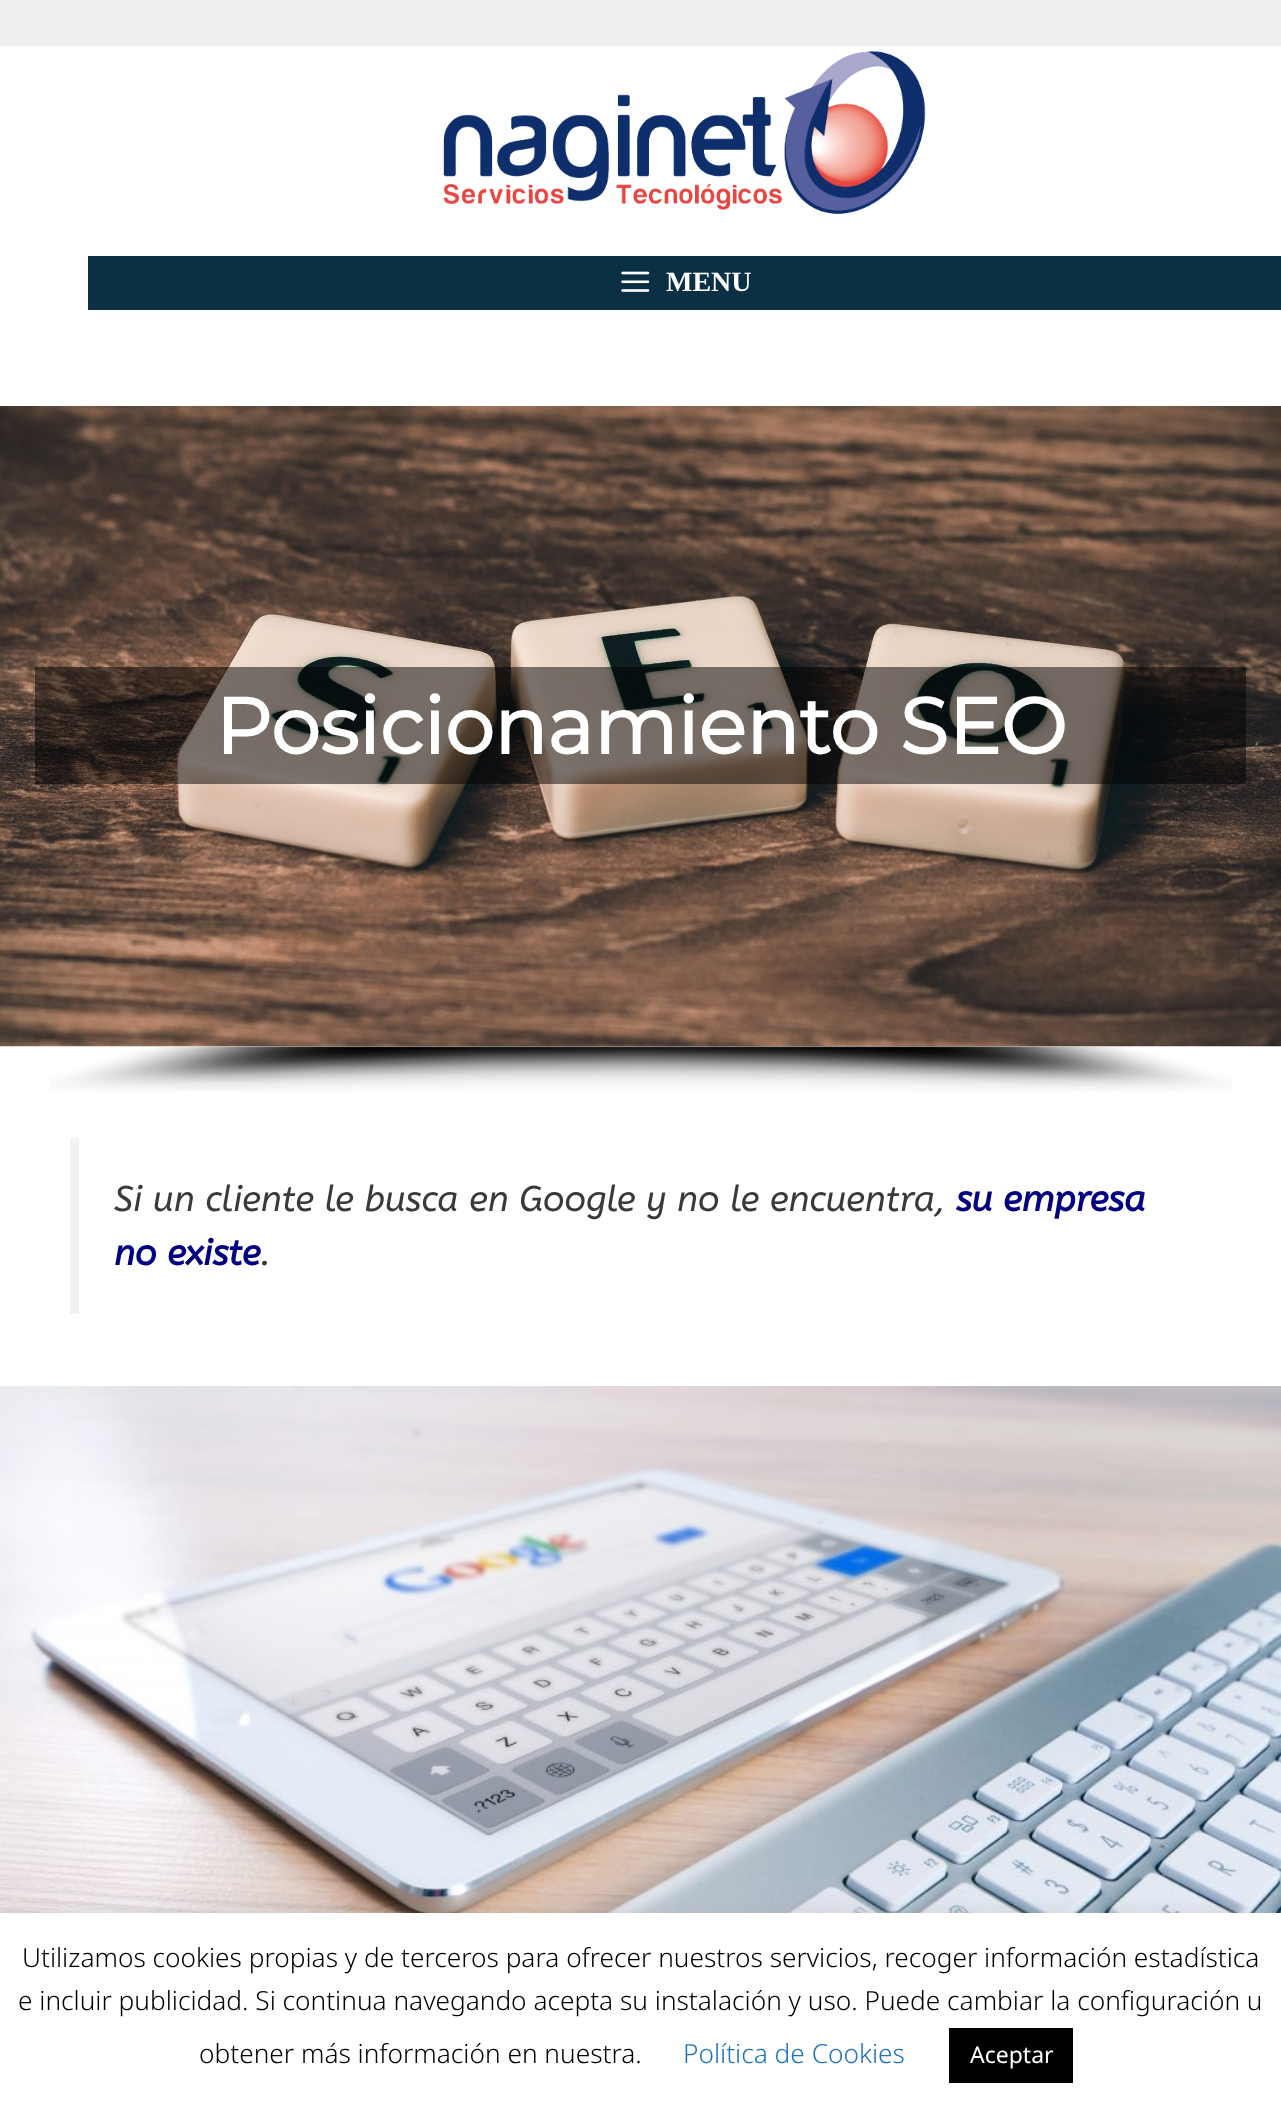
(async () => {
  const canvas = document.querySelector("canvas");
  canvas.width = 1281;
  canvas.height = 2112;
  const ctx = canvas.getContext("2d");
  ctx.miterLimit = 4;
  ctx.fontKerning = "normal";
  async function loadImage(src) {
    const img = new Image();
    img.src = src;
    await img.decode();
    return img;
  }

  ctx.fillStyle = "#efefef";
  ctx.fillRect(0, 0, 1281, 2112);
  ctx.fillStyle = "#ffffff";
  ctx.fillRect(0, 46, 1281, 1340);
  ctx.drawImage(await loadImage("img/1.png"), 443, 51, 483, 163);
  ctx.fillStyle = "#0b3043";
  ctx.fillRect(88, 256, 1193, 54);
  ctx.drawImage(await loadImage("img/2.png"), 621, 271, 29, 21);
  ctx.drawImage(await loadImage("img/4.png"), 49, 1046, 1183, 46);
  ctx.drawImage(await loadImage("img/3.png"), 0, 406, 1281, 641);
  ctx.fillStyle = "rgba(0, 0, 0, 0.5)";
  ctx.fillRect(35, 667, 1211, 117);
  ctx.fillStyle = "#f2f2f2";
  ctx.fillRect(70, 1138, 9, 176);
  ctx.drawImage(await loadImage("img/5.png"), 0, 1386, 1281, 527);
  ctx.fillStyle = "rgba(172, 171, 171, 0.3)";
  ctx.filter = "blur(9px)";
  ctx.beginPath();
  ctx.rect(0, 1911, 1281, 200);
  ctx.fill();
  ctx.filter = "none";
  ctx.fillStyle = "#ffffff";
  ctx.fillRect(0, 1913, 1281, 199);
  ctx.fillStyle = "#000000";
  ctx.fillRect(949, 2028, 124, 55);
  ctx.font = "bold 28px Liberation Serif";
  ctx.fillStyle = "#ffffff";
  ctx.fillText("MENU", 666, 291);
  ctx.font = "bold 78.75px Montserrat";
  ctx.fillText("Posicionamiento SEO", 215, 754);
  ctx.font = "italic 35.7px ABeeZee";
  ctx.fillStyle = "#3a3a3a";
  ctx.fillText("Si un cliente le busca en Google y no le encuentra,", 114, 1211);
  ctx.font = "italic bold 35.7px ABeeZee";
  ctx.fillStyle = "#000080";
  ctx.fillText("su empresa", 956, 1211);
  ctx.fillText("no existe", 114, 1265);
  ctx.font = "italic 35.7px ABeeZee";
  ctx.fillStyle = "#3a3a3a";
  ctx.fillText(".", 260, 1265);
  ctx.font = "300 26.25px Noto Sans";
  ctx.fillStyle = "#000000";
  for (const [text, x, y] of [
    ["Utilizamos cookies propias y de terceros para ofrecer nuestros servicios, recoger información estadística", 22, 1967],
    ["e incluir publicidad. Si continua navegando acepta su instalación y uso. Puede cambiar la configuración u", 18, 2010],
    ["obtener más información en nuestra.", 199, 2063],
  ]) {
    ctx.fillText(text, x, y);
  }
  ctx.fillStyle = "#1e73be";
  ctx.fillText("Política de Cookies", 683, 2063);
  ctx.font = "23px Noto Sans";
  ctx.fillStyle = "#ffffff";
  ctx.fillText("Aceptar", 970, 2063);
})();
